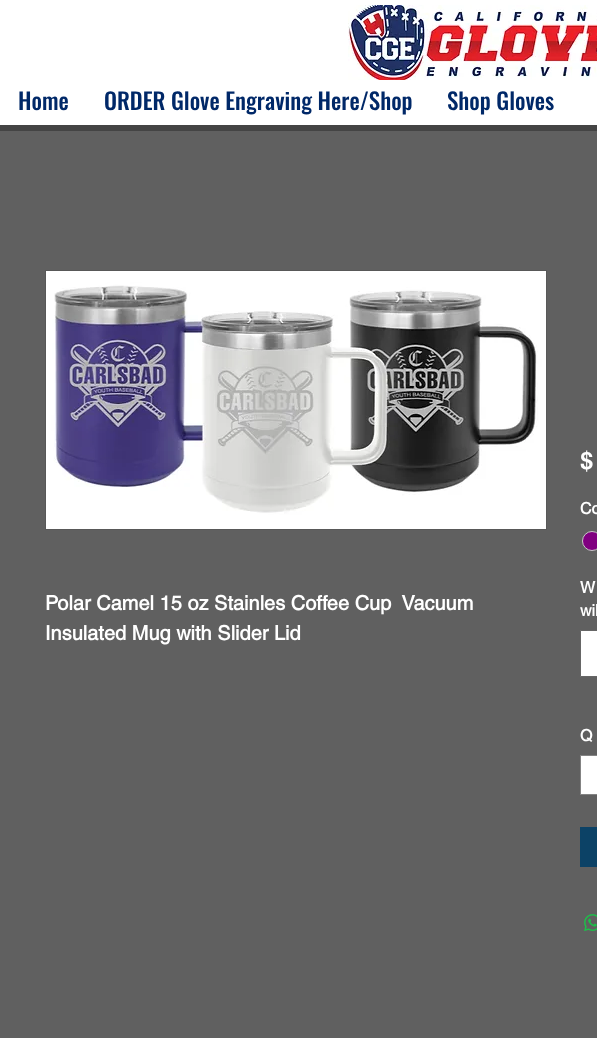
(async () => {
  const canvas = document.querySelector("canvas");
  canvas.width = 597;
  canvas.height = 1038;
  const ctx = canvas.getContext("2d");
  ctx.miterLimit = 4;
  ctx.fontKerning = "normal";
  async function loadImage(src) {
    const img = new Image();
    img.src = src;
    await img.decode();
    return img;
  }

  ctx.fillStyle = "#606060";
  ctx.fillRect(0, 0, 597, 1038);
  ctx.fillStyle = "#ffffff";
  ctx.fillRect(0, 0, 597, 125);
  ctx.drawImage(await loadImage("img/1.png"), 348, 5, 249, 75);
  ctx.fillStyle = "#444444";
  ctx.fillRect(0, 125, 597, 6);
  ctx.strokeStyle = "#585858";
  ctx.strokeRect(45.5, 270.5, 501, 259);
  ctx.drawImage(await loadImage("img/2.png"), 46, 271, 500, 258);
  ctx.fillStyle = "#800080";
  ctx.beginPath();
  ctx.arc(592, 541, 9.5, 0, Math.PI * 2);
  ctx.fill();
  ctx.strokeStyle = "#c9c9c9";
  ctx.stroke();
  ctx.fillStyle = "#ffffff";
  ctx.beginPath();
  ctx.rect(580.5, 630.5, 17, 46);
  ctx.fill();
  ctx.strokeStyle = "#666666";
  ctx.stroke();
  ctx.beginPath();
  ctx.rect(580.5, 755.5, 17, 39);
  ctx.fill();
  ctx.strokeStyle = "#838383";
  ctx.stroke();
  ctx.fillStyle = "#0c4266";
  ctx.fillRect(580, 827, 17, 40);
  ctx.drawImage(await loadImage("img/3.png"), 584, 914, 13, 17);
  ctx.font = "500 23px Oswald";
  ctx.fillStyle = "#002868";
  for (const [text, x, y] of [
    ["Home", 18, 110],
    ["ORDER Glove Engraving Here/Shop", 104, 110],
    ["Shop Gloves", 447, 110],
  ]) {
    ctx.fillText(text, x, y);
  }
  ctx.font = "bold 20px 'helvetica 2'";
  ctx.fillStyle = "#ffffff";
  ctx.fillText("Polar Camel 15 oz Stainles Coffee Cup  Vacuum", 45, 610);
  ctx.fillText("Insulated Mug with Slider Lid", 45, 640);
  ctx.font = "bold 24px helvetica";
  ctx.fillText("$", 580, 469);
  ctx.font = "bold 16px 'helvetica 2'";
  for (const [text, x, y] of [
    ["Co", 580, 514],
    ["W", 580, 593],
    ["wil", 580, 616],
    ["Q", 580, 741],
  ]) {
    ctx.fillText(text, x, y);
  }
})();
